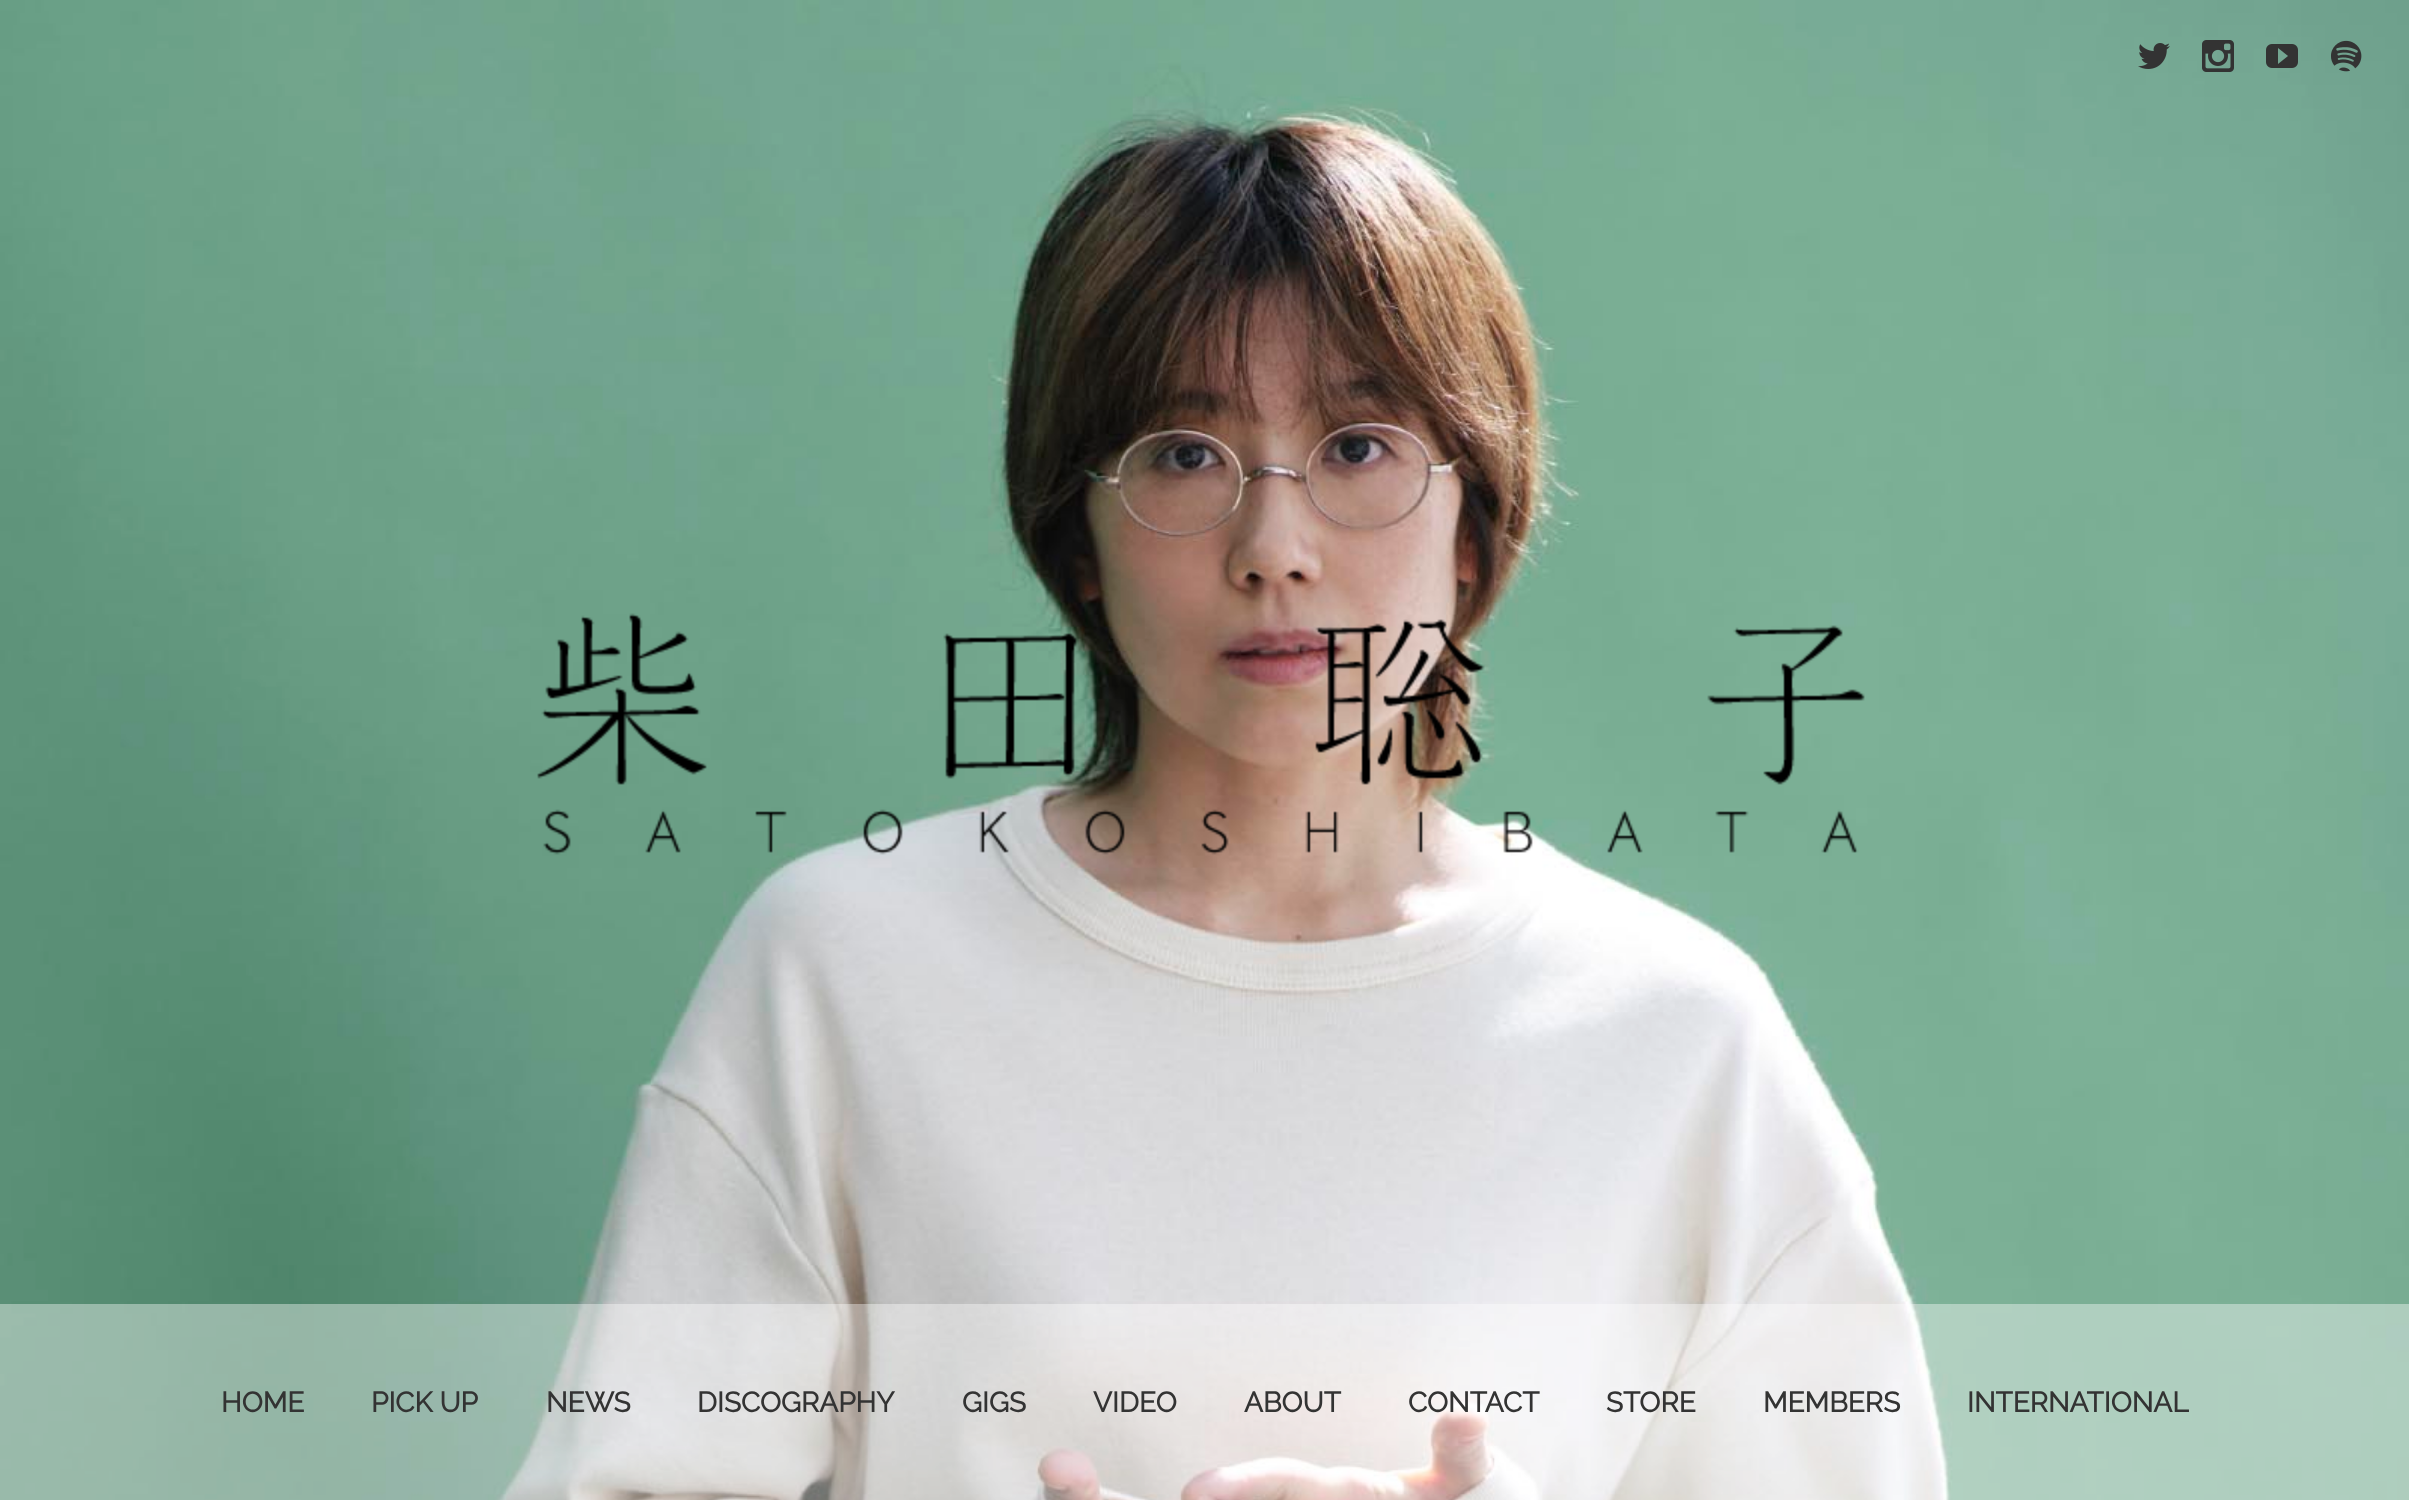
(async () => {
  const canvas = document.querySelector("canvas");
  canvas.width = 2409;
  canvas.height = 1500;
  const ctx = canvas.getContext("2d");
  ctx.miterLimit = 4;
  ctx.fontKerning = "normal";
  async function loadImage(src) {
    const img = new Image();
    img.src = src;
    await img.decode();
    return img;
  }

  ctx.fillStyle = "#ffffff";
  ctx.fillRect(0, 0, 2409, 1500);
  ctx.drawImage(await loadImage("img/1.png"), 0, 0, 2409, 1500);
  ctx.drawImage(await loadImage("img/2.png"), 2138, 43, 32, 26);
  ctx.drawImage(await loadImage("img/3.png"), 2202, 40, 32, 32);
  ctx.drawImage(await loadImage("img/4.png"), 2266, 44, 32, 24);
  ctx.drawImage(await loadImage("img/5.png"), 2331, 40, 31, 32);
  ctx.drawImage(await loadImage("img/6.png"), 537, 613, 1328, 242);
  ctx.fillStyle = "rgba(255, 255, 255, 0.4)";
  ctx.fillRect(0, 1304, 2409, 196);
  ctx.font = "bold 28px Raleway";
  ctx.fillStyle = "#333333";
  for (const [text, x, y] of [
    ["HOME", 221, 1412],
    ["PICK UP", 371, 1412],
    ["NEWS", 546, 1412],
    ["DISCOGRAPHY", 697, 1412],
    ["GIGS", 962, 1412],
    ["VIDEO", 1093, 1412],
    ["ABOUT", 1244, 1412],
    ["CONTACT", 1408, 1412],
    ["STORE", 1606, 1412],
    ["MEMBERS", 1763, 1412],
    ["INTERNATIONAL", 1967, 1412],
  ]) {
    ctx.fillText(text, x, y);
  }
})();
